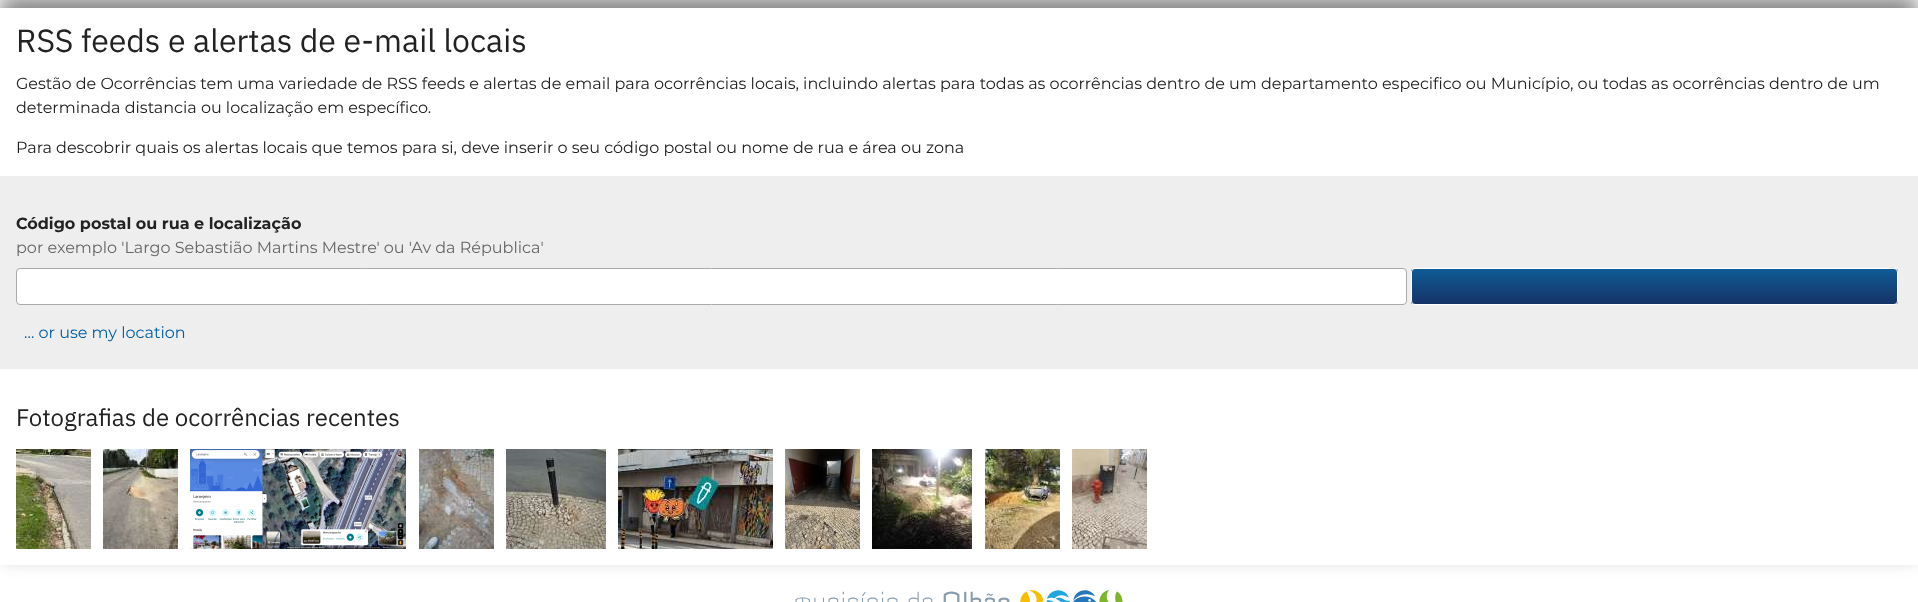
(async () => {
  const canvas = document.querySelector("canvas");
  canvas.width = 1918;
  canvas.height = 602;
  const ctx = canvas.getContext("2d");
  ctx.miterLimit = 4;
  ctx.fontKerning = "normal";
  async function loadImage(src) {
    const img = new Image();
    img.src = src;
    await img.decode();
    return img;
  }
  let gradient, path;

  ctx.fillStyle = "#ffffff";
  ctx.fillRect(0, 0, 1918, 602);
  ctx.save();
  path = new Path2D("M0 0H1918V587H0ZM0 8H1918V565H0Z");
  ctx.clip(path, "evenodd");
  ctx.fillStyle = "rgba(50, 50, 50, 0.6)";
  ctx.filter = "blur(11px)";
  ctx.beginPath();
  ctx.rect(0, -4, 1918, 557);
  ctx.fill();
  ctx.filter = "none";
  ctx.restore();
  ctx.fillStyle = "#eeeeee";
  ctx.fillRect(0, 176, 1918, 193);
  ctx.fillStyle = "#ffffff";
  ctx.beginPath();
  ctx.roundRect(16.5, 268.5, 1390, 36, 3.5);
  ctx.fill();
  ctx.strokeStyle = "#aaaaaa";
  ctx.stroke();
  ctx.save();
  ctx.beginPath();
  ctx.roundRect(1411, 268, 487, 37, 4);
  ctx.clip();
  gradient = ctx.createLinearGradient(1655, 269, 1655, 304);
  gradient.addColorStop(0, "#0f5b95");
  gradient.addColorStop(1, "#153367");
  ctx.fillStyle = gradient;
  ctx.fillRect(1411, 269, 487, 35);
  ctx.restore();
  ctx.beginPath();
  ctx.roundRect(1411.5, 268.5, 486, 36, 3.5);
  ctx.strokeStyle = "#ffffff";
  ctx.stroke();
  ctx.drawImage(await loadImage("img/1.png"), 16, 449, 75, 100);
  ctx.drawImage(await loadImage("img/2.png"), 103, 449, 75, 100);
  ctx.drawImage(await loadImage("img/3.png"), 190, 449, 216, 100);
  ctx.drawImage(await loadImage("img/4.png"), 419, 449, 75, 100);
  ctx.drawImage(await loadImage("img/5.png"), 506, 449, 100, 100);
  ctx.drawImage(await loadImage("img/6.png"), 618, 449, 155, 100);
  ctx.drawImage(await loadImage("img/7.png"), 785, 449, 75, 100);
  ctx.drawImage(await loadImage("img/8.png"), 872, 449, 100, 100);
  ctx.drawImage(await loadImage("img/9.png"), 985, 449, 75, 100);
  ctx.drawImage(await loadImage("img/10.png"), 1072, 449, 75, 100);
  ctx.drawImage(await loadImage("img/11.png"), 795, 590, 328, 12);
  ctx.font = "32px IBM Plex Sans";
  ctx.fillStyle = "#222222";
  ctx.fillText("RSS feeds e alertas de e-mail locais", 16, 52);
  ctx.font = "16px Montserrat";
  for (const [text, x, y] of [
    ["Gestão de Ocorrências tem uma variedade de RSS feeds e alertas de email para ocorrências locais, incluindo alertas para todas as ocorrências dentro de um departamento especifico ou Município, ou todas as ocorrências dentro de um", 16, 89],
    ["determinada distancia ou localização em específico.", 16, 113],
    ["Para descobrir quais os alertas locais que temos para si, deve inserir o seu código postal ou nome de rua e área ou zona", 16, 153],
  ]) {
    ctx.fillText(text, x, y);
  }
  ctx.font = "bold 16px Montserrat";
  ctx.fillText("Código postal ou rua e localização", 16, 229);
  ctx.font = "16px Montserrat";
  ctx.fillStyle = "#666666";
  ctx.fillText("por exemplo 'Largo Sebastião Martins Mestre' ou 'Av da Républica'", 16, 253);
  ctx.fillStyle = "#005ea5";
  ctx.fillText("… or use my location", 24, 338);
  ctx.font = "24px IBM Plex Sans";
  ctx.fillStyle = "#222222";
  ctx.fillText("Fotografias de ocorrências recentes", 16, 426);
})();
